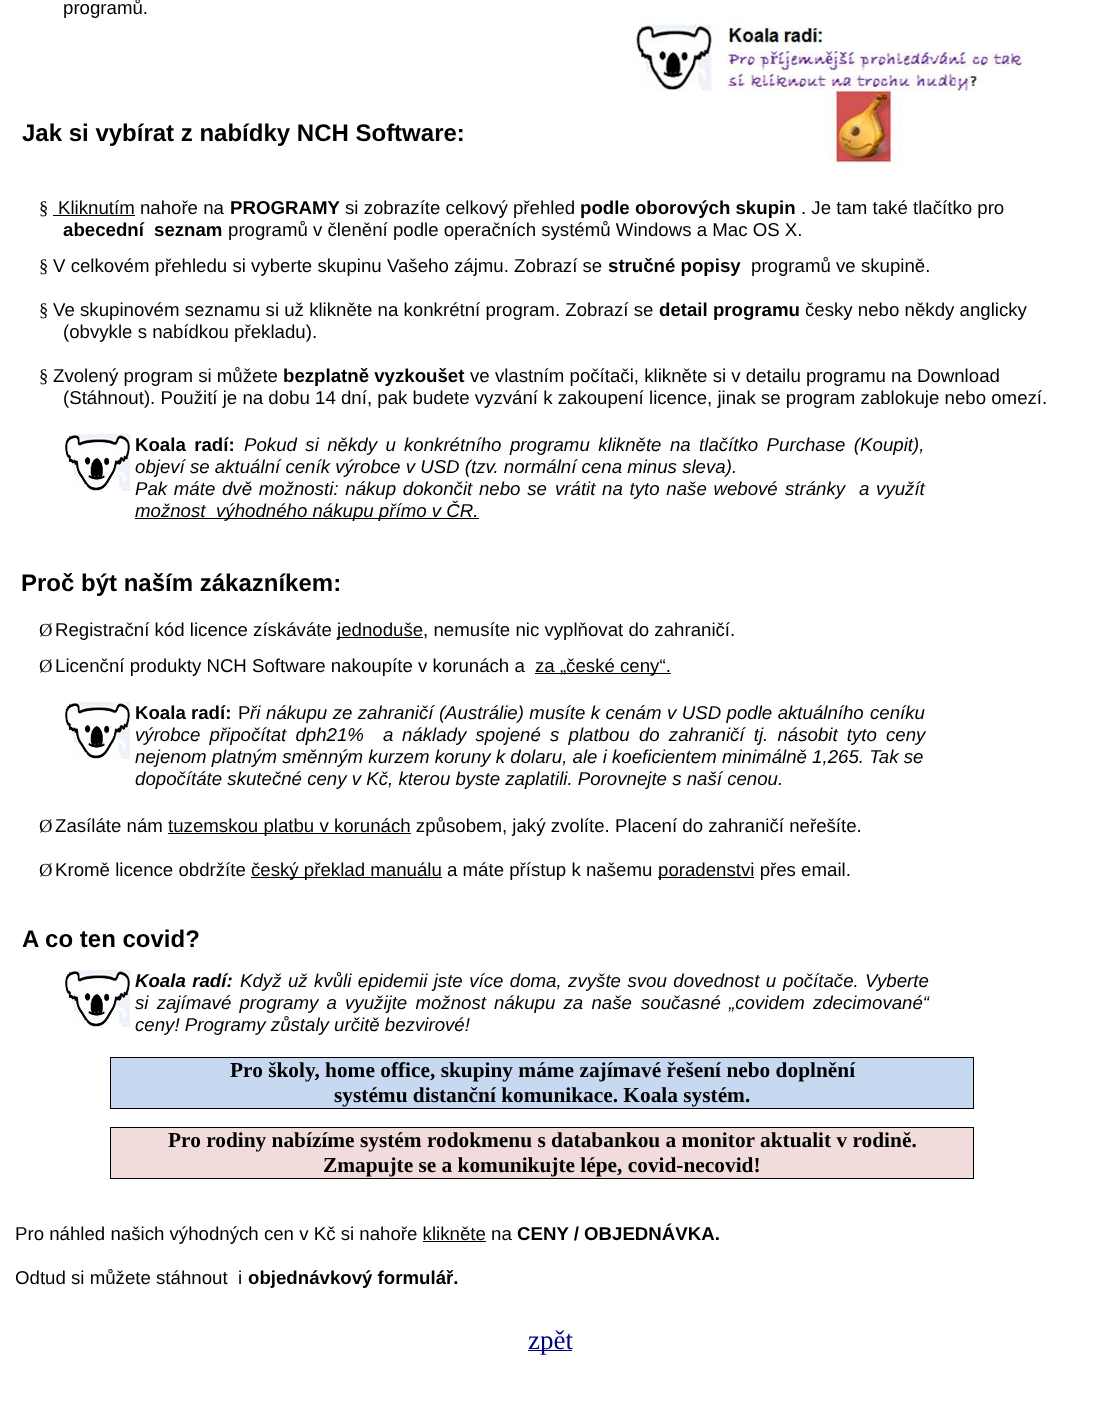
(async () => {
  const canvas = document.querySelector("canvas");
  canvas.width = 1117;
  canvas.height = 1414;
  const ctx = canvas.getContext("2d");
  ctx.miterLimit = 4;
  ctx.fontKerning = "normal";
  async function loadImage(src) {
    const img = new Image();
    img.src = src;
    await img.decode();
    return img;
  }

  ctx.fillStyle = "#ffffff";
  ctx.fillRect(0, 0, 1117, 1414);
  ctx.drawImage(await loadImage("img/1.png"), 631, 19, 392, 145);
  ctx.fillStyle = "#000000";
  ctx.fillRect(53, 215, 82, 1);
  ctx.drawImage(await loadImage("img/2.png"), 65, 434, 65, 57);
  for (const [x, y, w, h, color] of [
    [135, 518, 344, 1, "#000000"],
    [337, 637, 86, 1, "#000000"],
    [535, 673, 136, 1, "#000000"],
  ]) {
    ctx.fillStyle = color;
    ctx.fillRect(x, y, w, h);
  }
  ctx.drawImage(await loadImage("img/2.png"), 65, 702, 65, 57);
  for (const [x, y, w, h, color] of [
    [168, 833, 243, 1, "#000000"],
    [251, 877, 191, 1, "#000000"],
    [658, 877, 96, 1, "#000000"],
  ]) {
    ctx.fillStyle = color;
    ctx.fillRect(x, y, w, h);
  }
  ctx.drawImage(await loadImage("img/2.png"), 65, 970, 65, 57);
  for (const [x, y, w, h, color] of [
    [111, 1058, 862, 50, "#c6d9f1"],
    [110, 1057, 864, 1, "#000000"],
    [973, 1057, 1, 52, "#000000"],
    [110, 1108, 864, 1, "#000000"],
    [110, 1057, 1, 52, "#000000"],
    [111, 1128, 862, 50, "#f2dbdb"],
    [110, 1127, 864, 1, "#000000"],
    [973, 1127, 1, 52, "#000000"],
    [110, 1178, 864, 1, "#000000"],
    [110, 1127, 1, 52, "#000000"],
    [423, 1241, 63, 1, "#000000"],
    [528, 1350, 44, 1, "#000080"],
  ]) {
    ctx.fillStyle = color;
    ctx.fillRect(x, y, w, h);
  }
  ctx.font = "18.67px Liberation Sans";
  ctx.fillStyle = "#000000";
  ctx.fillText("programů.", 63, 14);
  ctx.font = "bold 24px Liberation Sans";
  ctx.fillText("Jak si vybírat z nabídky NCH Software:", 22, 141);
  ctx.font = "18.67px Liberation Serif";
  ctx.fillText("§", 39, 214);
  ctx.font = "18.67px Liberation Sans";
  ctx.fillText("Kliknutím nahoře na", 58, 214);
  ctx.font = "bold 18.67px Liberation Sans";
  ctx.fillText("PROGRAMY", 230, 214);
  ctx.font = "18.67px Liberation Sans";
  ctx.fillText("si zobrazíte celkový přehled", 345, 214);
  ctx.font = "bold 18.67px Liberation Sans";
  ctx.fillText("podle oborových skupin", 580, 214);
  ctx.font = "18.67px Liberation Sans";
  ctx.fillText(". Je tam také tlačítko pro", 801, 214);
  ctx.font = "bold 18.67px Liberation Sans";
  ctx.fillText("abecední", 63, 236);
  ctx.fillText("seznam", 154, 236);
  ctx.font = "18.67px Liberation Sans";
  ctx.fillText("programů v členění podle operačních systémů Windows a Mac OS X.", 228, 236);
  ctx.font = "18.67px Liberation Serif";
  ctx.fillText("§", 39, 272);
  ctx.font = "18.67px Liberation Sans";
  ctx.fillText("V celkovém přehledu si vyberte skupinu Vašeho zájmu. Zobrazí se", 53, 272);
  ctx.font = "bold 18.67px Liberation Sans";
  ctx.fillText("stručné popisy", 608, 272);
  ctx.font = "18.67px Liberation Sans";
  ctx.fillText("programů ve skupině.", 751, 272);
  ctx.font = "18.67px Liberation Serif";
  ctx.fillText("§", 39, 316);
  ctx.font = "18.67px Liberation Sans";
  ctx.fillText("Ve skupinovém seznamu si už klikněte na konkrétní program. Zobrazí se", 53, 316);
  ctx.font = "bold 18.67px Liberation Sans";
  ctx.fillText("detail programu", 659, 316);
  ctx.font = "18.67px Liberation Sans";
  ctx.fillText("česky nebo někdy anglicky", 805, 316);
  ctx.fillText("(obvykle s nabídkou překladu).", 63, 338);
  ctx.font = "18.67px Liberation Serif";
  ctx.fillText("§", 39, 382);
  ctx.font = "18.67px Liberation Sans";
  ctx.fillText("Zvolený program si můžete", 53, 382);
  ctx.font = "bold 18.67px Liberation Sans";
  ctx.fillText("bezplatně vyzkoušet", 283, 382);
  ctx.font = "18.67px Liberation Sans";
  ctx.fillText("ve vlastním počítači, klikněte si v detailu programu na Download", 470, 382);
  ctx.fillText("(Stáhnout). Použití je na dobu 14 dní, pak budete vyzvání k zakoupení licence, jinak se program zablokuje nebo omezí.", 63, 404);
  ctx.wordSpacing = "3.25px";
  ctx.font = "bold 18.67px Liberation Sans";
  ctx.fillText("Koala radí:", 135, 451);
  ctx.font = "italic 18.67px Liberation Sans";
  ctx.fillText("Pokud si někdy u", 244, 451);
  ctx.fillText("konkrétního programu klikněte na tlačítko Purchase (Koupit),", 404, 451);
  ctx.wordSpacing = "0px";
  ctx.fillText("objeví se aktuální ceník výrobce v USD (tzv. normální cena minus sleva).", 135, 473);
  ctx.wordSpacing = "1.5px";
  ctx.fillText("Pak máte dvě možnosti: nákup dokončit nebo se", 135, 495);
  ctx.fillText("vrátit na tyto naše webové", 555, 495);
  ctx.wordSpacing = "0px";
  ctx.fillText("stránky", 785, 495);
  ctx.wordSpacing = "1.5px";
  ctx.fillText("a využít", 859, 495);
  ctx.wordSpacing = "0px";
  ctx.fillText("možnost", 135, 517);
  ctx.fillText("výhodného nákupu přímo v ČR.", 216, 517);
  ctx.font = "bold 24px Liberation Sans";
  ctx.fillText("Proč být naším zákazníkem:", 21, 591);
  ctx.font = "18.67px Liberation Serif";
  ctx.fillText("Ø", 39, 636);
  ctx.font = "18.67px Liberation Sans";
  ctx.fillText("Registrační kód licence získáváte", 55, 636);
  ctx.fillText("jednoduše, nemusíte nic vyplňovat do zahraničí.", 337, 636);
  ctx.font = "18.67px Liberation Serif";
  ctx.fillText("Ø", 39, 672);
  ctx.font = "18.67px Liberation Sans";
  ctx.fillText("Licenční produkty NCH Software nakoupíte v korunách a", 55, 672);
  ctx.fillText("za „české ceny“.", 535, 672);
  ctx.font = "bold 18.67px Liberation Sans";
  ctx.fillText("Koala radí:", 135, 719);
  ctx.font = "18.67px Liberation Sans";
  ctx.fillText("P", 238, 719);
  ctx.font = "italic 18.67px Liberation Sans";
  ctx.fillText("ři", 250, 719);
  ctx.wordSpacing = "0.25px";
  ctx.fillText("nákupu ze zahraničí (Austrálie) musíte k cenám v USD podle aktuálního", 266, 719);
  ctx.wordSpacing = "0px";
  ctx.fillText("ceníku", 870, 719);
  ctx.wordSpacing = "4px";
  ctx.fillText("výrobce připočítat dph21%", 135, 741);
  ctx.wordSpacing = "0px";
  ctx.fillText("a", 383, 741);
  ctx.wordSpacing = "4px";
  ctx.fillText("náklady spojené s platbou do zahraničí tj. násobit tyto ceny", 402, 741);
  ctx.wordSpacing = "0px";
  ctx.fillText("nejenom platným směnným kurzem koruny k dolaru, ale i koeficientem minimálně 1,265. Tak se", 135, 763);
  ctx.fillText("dopočítáte skutečné ceny v Kč, kterou byste zaplatili. Porovnejte s naší cenou.", 135, 785);
  ctx.font = "18.67px Liberation Serif";
  ctx.fillText("Ø", 39, 832);
  ctx.font = "18.67px Liberation Sans";
  ctx.fillText("Zasíláte nám", 55, 832);
  ctx.fillText("tuzemskou platbu v korunách způsobem, jaký zvolíte. Placení do zahraničí neřešíte.", 168, 832);
  ctx.font = "18.67px Liberation Serif";
  ctx.fillText("Ø", 39, 876);
  ctx.font = "18.67px Liberation Sans";
  for (const [text, x, y] of [
    ["Kromě licence obdržíte", 55, 876],
    ["český překlad manuálu a máte přístup k našemu", 251, 876],
    ["poradenstvi přes email.", 658, 876],
  ]) {
    ctx.fillText(text, x, y);
  }
  ctx.font = "bold 24px Liberation Sans";
  ctx.fillText("A co ten covid?", 22, 947);
  ctx.wordSpacing = "1.25px";
  ctx.font = "italic bold 18.67px Liberation Sans";
  ctx.fillText("Koala radí:", 135, 987);
  ctx.font = "italic 18.67px Liberation Sans";
  ctx.fillText("Když už kvůli epidemii jste více doma, zvyšte svou dovednost u", 240, 987);
  ctx.wordSpacing = "1px";
  ctx.fillText("počítače. Vyberte", 783, 987);
  ctx.wordSpacing = "3px";
  ctx.fillText("si zajímavé programy a využijte možnost nákupu za naše", 135, 1009);
  ctx.fillText("současné „covidem zdecimované“", 641, 1009);
  ctx.wordSpacing = "0px";
  ctx.fillText("ceny! Programy zůstaly určitě bezvirové!", 135, 1031);
  ctx.font = "bold 21.35px Liberation Serif";
  for (const [text, x, y] of [
    ["Pro školy, home office, skupiny máme zajímavé řešení nebo doplnění", 230, 1077],
    ["systému distanční komunikace. Koala systém.", 334, 1102],
    ["Pro rodiny nabízíme systém rodokmenu s databankou a monitor aktualit v rodině.", 168, 1147],
    ["Zmapujte se a komunikujte lépe, covid-necovid!", 323, 1172],
  ]) {
    ctx.fillText(text, x, y);
  }
  ctx.font = "18.67px Liberation Sans";
  ctx.fillText("Pro náhled našich výhodných cen v Kč si nahoře klikněte na", 15, 1240);
  ctx.font = "bold 18.67px Liberation Sans";
  ctx.fillText("CENY / OBJEDNÁVKA.", 517, 1240);
  ctx.font = "18.67px Liberation Sans";
  ctx.fillText("Odtud si můžete stáhnout", 15, 1284);
  ctx.fillText("i", 238, 1284);
  ctx.font = "bold 18.67px Liberation Sans";
  ctx.fillText("objednávkový formulář.", 248, 1284);
  ctx.font = "27px Liberation Serif";
  ctx.fillStyle = "#000080";
  ctx.fillText("zpět", 528, 1349);
})();
